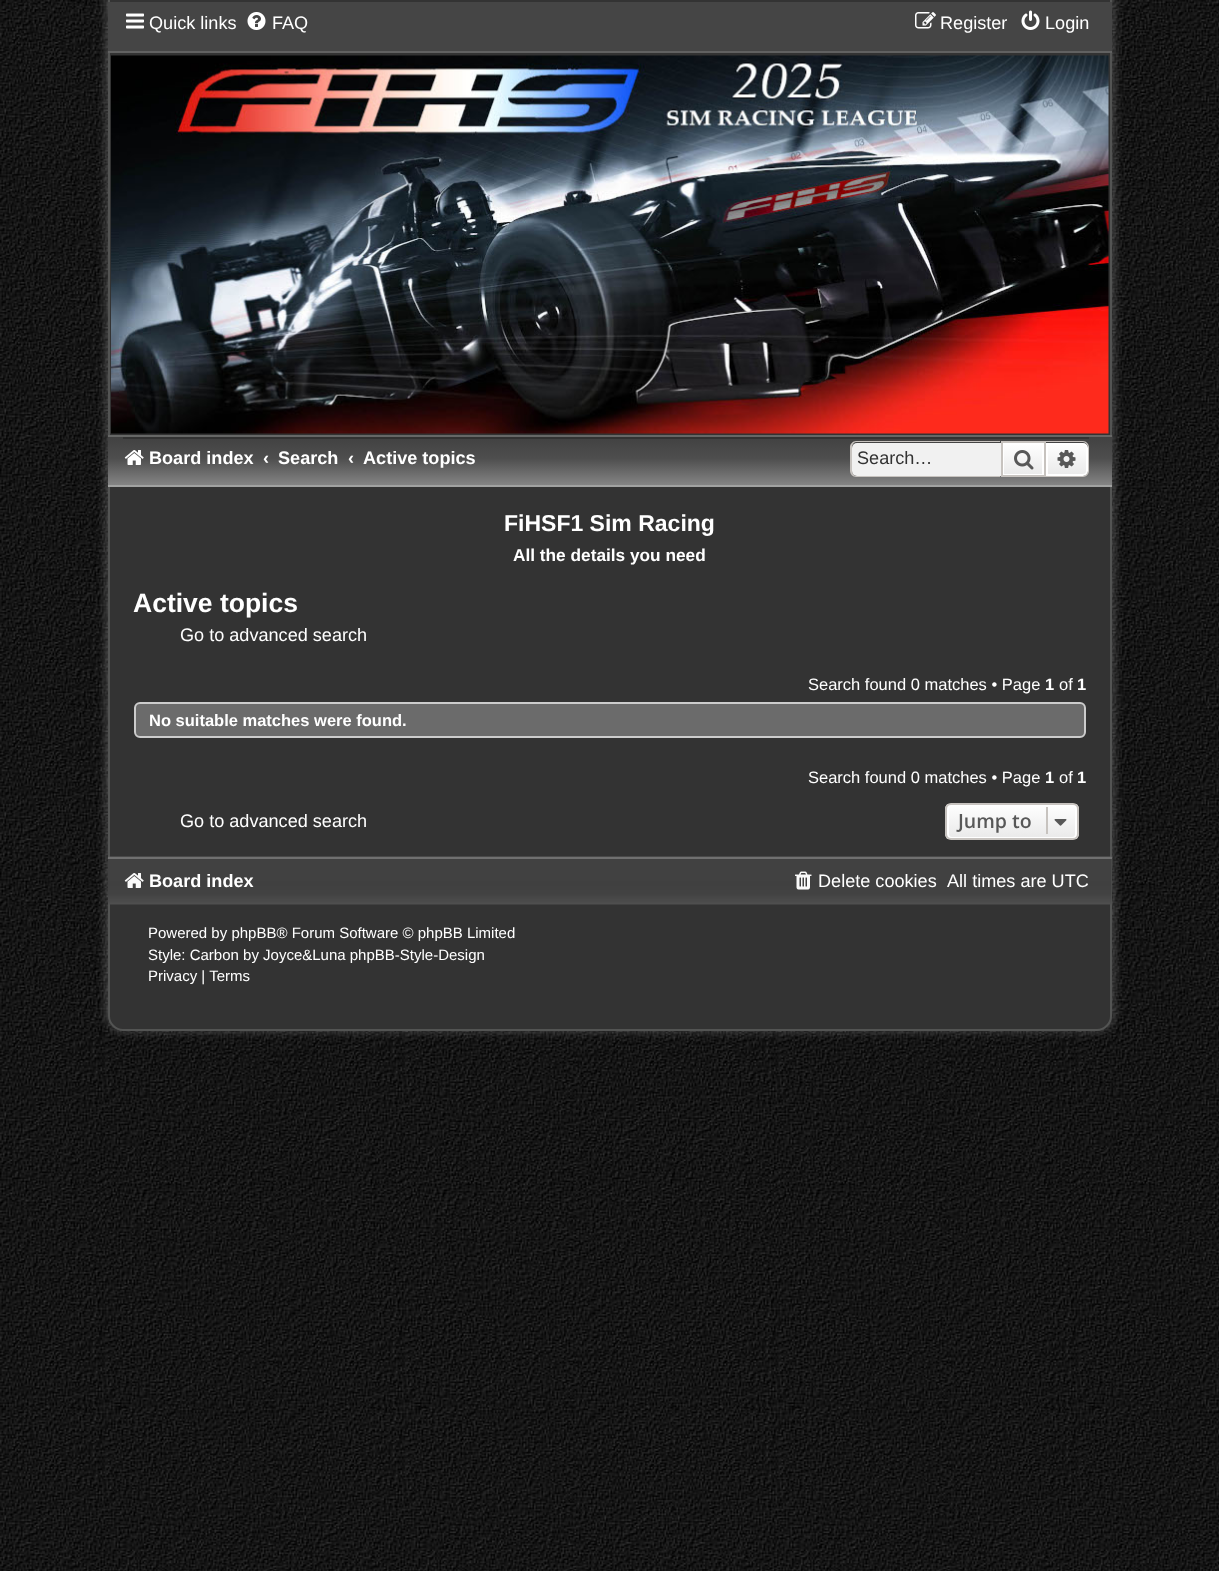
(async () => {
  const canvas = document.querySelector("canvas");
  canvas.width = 1219;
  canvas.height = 1571;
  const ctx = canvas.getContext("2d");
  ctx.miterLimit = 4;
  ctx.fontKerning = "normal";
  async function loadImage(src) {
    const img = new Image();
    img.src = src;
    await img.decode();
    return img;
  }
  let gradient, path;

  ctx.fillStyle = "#ffffff";
  ctx.fillRect(0, 0, 1219, 1571);
  ctx.drawImage(await loadImage("img/1.png"), 0, 1053, 1219, 518);
  ctx.drawImage(await loadImage("img/2.png"), 0, 0, 1219, 1053);
  ctx.fillStyle = "rgba(255, 255, 255, 0.2)";
  ctx.filter = "blur(4.5px)";
  ctx.beginPath();
  ctx.roundRect(105, -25, 1010, 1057, 18);
  ctx.fill();
  ctx.filter = "none";
  ctx.fillStyle = "#333333";
  path = new Path2D("M109-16H1111V1016C1111 1023.5 1104.5 1030 1097 1030H123C115.5 1030 109 1023.5 109 1016Z");
  ctx.fill(path);
  ctx.strokeStyle = "#535453";
  ctx.lineWidth = 2;
  ctx.stroke(path);
  ctx.fillStyle = "#454545";
  ctx.fillRect(108, 2, 1004, 49);
  ctx.drawImage(await loadImage("img/3.png"), 126, 13, 18, 16);
  ctx.drawImage(await loadImage("img/4.png"), 247, 12, 19, 18);
  ctx.drawImage(await loadImage("img/5.png"), 915, 12, 21, 17);
  ctx.drawImage(await loadImage("img/6.png"), 1021, 10, 19, 20);
  ctx.fillStyle = "#616161";
  ctx.fillRect(108, 51, 1004, 2);
  ctx.drawImage(await loadImage("img/7.png"), 111, 55, 998, 379);
  gradient = ctx.createLinearGradient(610, 436, 610, 511);
  gradient.addColorStop(0, "#414141");
  gradient.addColorStop(0.3, "#4e4e4e");
  gradient.addColorStop(0.67, "#878787");
  gradient.addColorStop(1, "#fafafa");
  ctx.fillStyle = gradient;
  ctx.fillRect(108, 437, 1004, 48);
  for (const [x, y, w, h, color] of [
    [108, 435, 1004, 2, "#666766"],
    [108, 485, 1004, 2, "#a1a2a1"],
    [123, 437, 966, 2, "#333333"],
  ]) {
    ctx.fillStyle = color;
    ctx.fillRect(x, y, w, h);
  }
  ctx.drawImage(await loadImage("img/8.png"), 124, 450, 20, 15);
  ctx.fillStyle = "#f1f1f1";
  ctx.beginPath();
  ctx.roundRect(852, 443, 149, 33, [5, 0, 0, 5]);
  ctx.fill();
  ctx.fillStyle = "#c7c3bf";
  path = new Path2D("M856 441H1000V477H856C853 477 850 474 850 471V447C850 444 853 441 856 441ZM856 442H1000V476H856C854 476 852 473 852 471V447C852 445 854 442 856 442Z");
  ctx.fill(path, "evenodd");
  gradient = ctx.createLinearGradient(1023, 443, 1023, 476);
  gradient.addColorStop(0, "#ffffff");
  gradient.addColorStop(1, "#e9e9e9");
  ctx.fillStyle = gradient;
  ctx.fillRect(1004, 445, 38, 29);
  ctx.strokeStyle = "#ffffff";
  ctx.strokeRect(1003, 444, 40, 31);
  ctx.strokeStyle = "#c7c3bf";
  ctx.strokeRect(1002, 442, 43, 34);
  ctx.drawImage(await loadImage("img/9.png"), 1014, 450, 20, 20);
  gradient = ctx.createLinearGradient(1067, 443, 1067, 476);
  gradient.addColorStop(0, "#ffffff");
  gradient.addColorStop(1, "#e9e9e9");
  ctx.fillStyle = gradient;
  ctx.beginPath();
  ctx.roundRect(1047, 444, 40, 31, [0, 4, 4, 0]);
  ctx.fill();
  ctx.strokeStyle = "#ffffff";
  ctx.stroke();
  ctx.fillStyle = "#c7c3bf";
  path = new Path2D("M1046 441H1083C1086 441 1089 444 1089 447V471C1089 474 1086 477 1083 477H1046ZM1046 442H1083C1085 442 1088 445 1088 447V471C1088 473 1085 476 1083 476H1046Z");
  ctx.fill(path, "evenodd");
  ctx.drawImage(await loadImage("img/10.png"), 1057, 450, 19, 18);
  ctx.fillStyle = "#6b6b6b";
  ctx.beginPath();
  ctx.roundRect(135, 703, 950, 34, 5);
  ctx.fill();
  ctx.strokeStyle = "#cccccc";
  ctx.stroke();
  ctx.save();
  ctx.beginPath();
  ctx.roundRect(945, 803, 134, 37, 6);
  ctx.clip();
  gradient = ctx.createLinearGradient(1012, 804, 1012, 839);
  gradient.addColorStop(0, "#ffffff");
  gradient.addColorStop(1, "#e9e9e9");
  ctx.fillStyle = gradient;
  ctx.fillRect(945, 804, 134, 35);
  ctx.restore();
  ctx.beginPath();
  ctx.roundRect(948, 805, 128, 33, 4);
  ctx.strokeStyle = "#ffffff";
  ctx.stroke();
  ctx.beginPath();
  ctx.roundRect(946, 804, 132, 35, 5);
  ctx.strokeStyle = "#c7c3bf";
  ctx.stroke();
  ctx.fillStyle = "#c7c3bf";
  ctx.fillRect(1046, 807, 2, 27);
  ctx.drawImage(await loadImage("img/11.png"), 1054, 819, 13, 7);
  ctx.drawImage(await loadImage("img/12.png"), 108, 856, 1004, 49);
  ctx.fillStyle = "#707070";
  ctx.fillRect(108, 857, 1004, 2);
  ctx.drawImage(await loadImage("img/13.png"), 124, 873, 20, 15);
  ctx.drawImage(await loadImage("img/14.png"), 795, 871, 17, 19);
  ctx.font = "18.1px Liberation Sans";
  ctx.fillStyle = "#ffffff";
  for (const [text, x, y] of [
    ["Quick links", 149, 29],
    ["FAQ", 272, 29],
    ["Register", 940, 29],
    ["Login", 1045, 29],
  ]) {
    ctx.fillText(text, x, y);
  }
  ctx.font = "bold 18.1px Liberation Sans";
  for (const [text, x, y] of [
    ["Board index", 149, 464],
    ["‹", 263, 464],
    ["Search", 278, 464],
    ["‹", 348, 464],
    ["Active topics", 363, 464],
  ]) {
    ctx.fillText(text, x, y);
  }
  ctx.font = "18.1px Liberation Sans";
  ctx.fillStyle = "#333333";
  ctx.fillText("Search…", 857, 464);
  ctx.font = "bold 23px Liberation Sans";
  ctx.fillStyle = "#ffffff";
  ctx.fillText("FiHSF1 Sim Racing", 504, 531);
  ctx.font = "bold 17.25px Liberation Sans";
  ctx.fillText("All the details you need", 513, 561);
  ctx.font = "bold 26.5px Liberation Sans";
  ctx.fillText("Active topics", 133, 612);
  ctx.font = "18.1px Liberation Sans";
  ctx.fillText("Go to advanced search", 180, 641);
  ctx.font = "16.5px Liberation Sans";
  ctx.fillText("Search found 0 matches • Page", 808, 690);
  ctx.font = "bold 16.5px Liberation Sans";
  ctx.fillText("1", 1045, 690);
  ctx.font = "16.5px Liberation Sans";
  ctx.fillText("of", 1059, 690);
  ctx.font = "bold 16.5px Liberation Sans";
  ctx.fillText("1", 1077, 690);
  ctx.fillText("No suitable matches were found.", 149, 726);
  ctx.font = "16.5px Liberation Sans";
  ctx.fillText("Search found 0 matches • Page", 808, 783);
  ctx.font = "bold 16.5px Liberation Sans";
  ctx.fillText("1", 1045, 783);
  ctx.font = "16.5px Liberation Sans";
  ctx.fillText("of", 1059, 783);
  ctx.font = "bold 16.5px Liberation Sans";
  ctx.fillText("1", 1077, 783);
  ctx.font = "18.1px Liberation Sans";
  ctx.fillText("Go to advanced search", 180, 827);
  ctx.font = "600 19.5px Open Sans";
  ctx.fillStyle = "#585858";
  ctx.fillText("Jump to", 958, 828);
  ctx.font = "bold 18.1px Liberation Sans";
  ctx.fillStyle = "#ffffff";
  ctx.fillText("Board index", 149, 887);
  ctx.font = "18.1px Liberation Sans";
  ctx.fillText("Delete cookies", 818, 887);
  ctx.fillText("All times are UTC", 947, 887);
  ctx.font = "15px Liberation Sans";
  for (const [text, x, y] of [
    ["Powered by phpBB® Forum Software © phpBB Limited", 148, 938],
    ["Style: Carbon by Joyce&Luna phpBB-Style-Design", 148, 960],
    ["Privacy | Terms", 148, 981],
  ]) {
    ctx.fillText(text, x, y);
  }
})();
